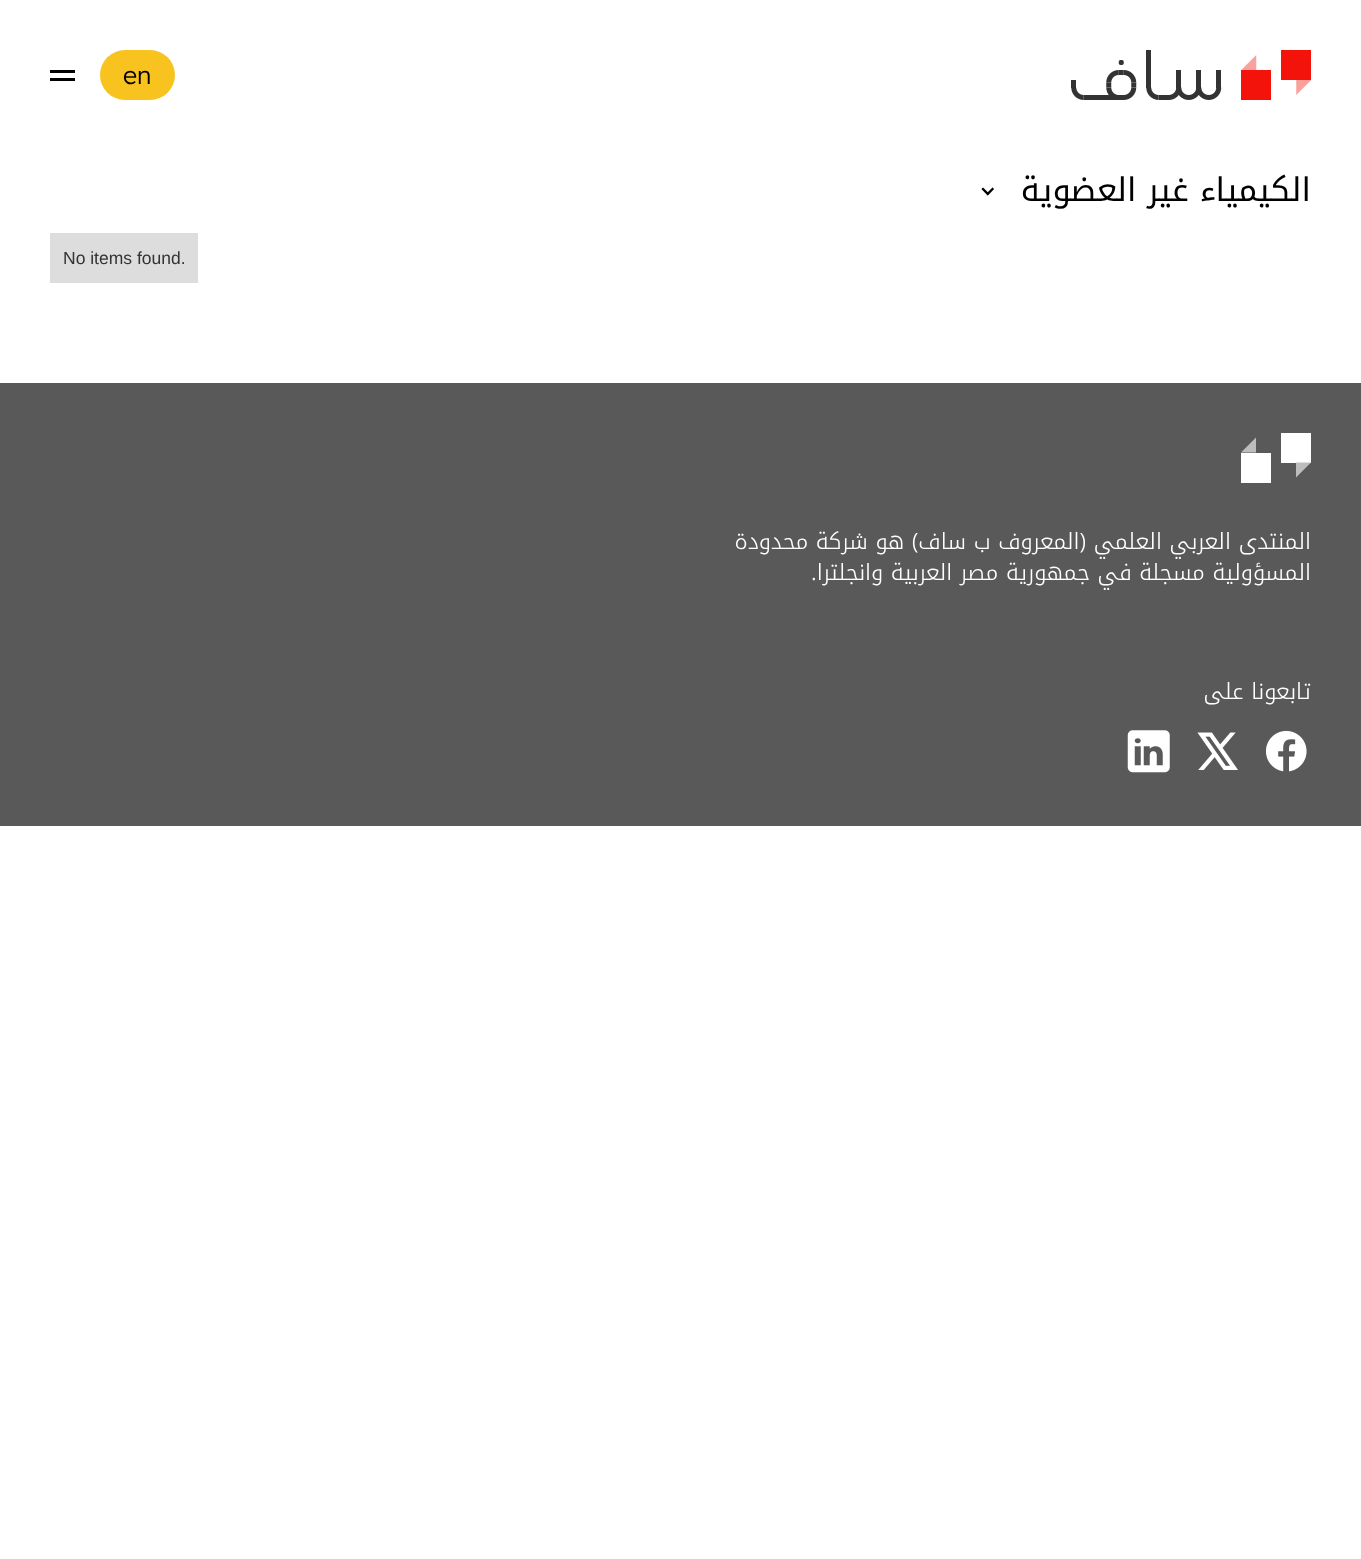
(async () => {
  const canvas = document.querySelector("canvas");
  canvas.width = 1361;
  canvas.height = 1559;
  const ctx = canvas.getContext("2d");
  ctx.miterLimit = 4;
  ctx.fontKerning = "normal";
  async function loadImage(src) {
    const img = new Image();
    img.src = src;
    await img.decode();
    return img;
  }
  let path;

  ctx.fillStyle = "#ffffff";
  ctx.fillRect(0, 0, 1361, 1559);
  ctx.drawImage(await loadImage("img/1.png"), 1071, 50, 240, 50);
  ctx.fillStyle = "#f9c31f";
  ctx.beginPath();
  ctx.roundRect(100, 50, 75, 50, 25);
  ctx.fill();
  ctx.fillStyle = "#000000";
  ctx.fillRect(50, 70, 25, 3);
  ctx.fillRect(50, 78, 25, 3);
  ctx.drawImage(await loadImage("img/2.png"), 981, 187, 13, 9);
  for (const [x, y, w, h, color] of [
    [50, 233, 148, 50, "#dddddd"],
    [0, 383, 1361, 443, "#595959"],
    [1241, 453, 30, 30, "#ffffff"],
  ]) {
    ctx.fillStyle = color;
    ctx.fillRect(x, y, w, h);
  }
  ctx.fillStyle = "#bdbdbd";
  path = new Path2D("M1241 452.5H1256V437.5Z");
  ctx.fill(path);
  ctx.fillStyle = "#ffffff";
  ctx.fillRect(1281, 433, 30, 30);
  ctx.fillStyle = "#bdbdbd";
  path = new Path2D("M1311 462.5H1296V477.5Z");
  ctx.fill(path);
  ctx.drawImage(await loadImage("img/3.png"), 1265, 730, 42, 42);
  ctx.drawImage(await loadImage("img/4.png"), 1197, 732, 41, 38);
  ctx.drawImage(await loadImage("img/5.png"), 1127, 730, 43, 43);
  ctx.font = "300 25px Lexend Deca";
  ctx.fillStyle = "#000000";
  ctx.fillText("en", 123, 84);
  ctx.direction = "rtl";
  ctx.font = "32.5px Noto Kufi Arabic";
  ctx.fillText("الكيمياء غير العضوية", 1311, 201);
  ctx.direction = "ltr";
  ctx.font = "17.5px Liberation Sans";
  ctx.fillStyle = "#333333";
  ctx.fillText("No items found.", 63, 264);
  ctx.direction = "rtl";
  ctx.font = "300 22.5px Noto Kufi Arabic";
  ctx.fillStyle = "#ffffff";
  for (const [text, x, y] of [
    ["المنتدى العربي العلمي (المعروف ب ساف) هو شركة محدودة", 1311, 549],
    ["المسؤولية مسجلة في جمهورية مصر العربية وانجلترا.", 1311, 580],
    ["تابعونا على", 1311, 699],
  ]) {
    ctx.fillText(text, x, y);
  }
})();
